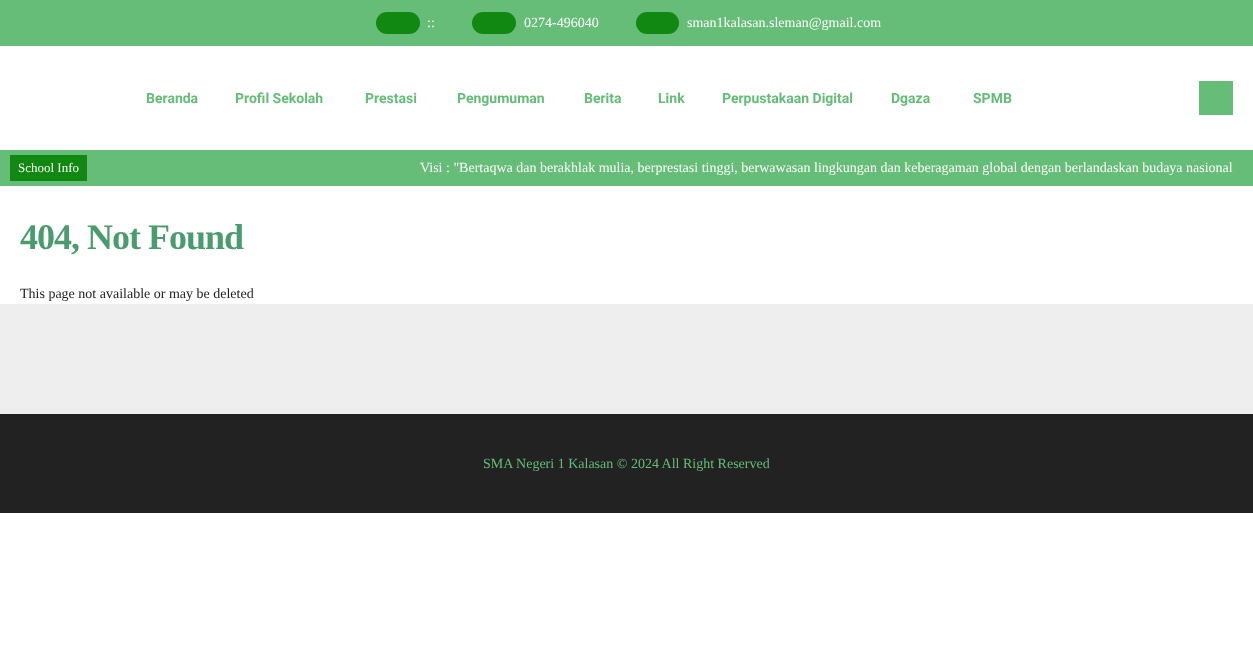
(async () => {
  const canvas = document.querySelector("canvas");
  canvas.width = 1253;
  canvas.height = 659;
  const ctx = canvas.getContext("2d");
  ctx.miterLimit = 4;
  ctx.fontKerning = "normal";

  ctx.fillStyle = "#ffffff";
  ctx.fillRect(0, 0, 1253, 659);
  ctx.fillStyle = "#65bd77";
  ctx.fillRect(0, 0, 1253, 46);
  ctx.fillStyle = "#118811";
  ctx.beginPath();
  ctx.roundRect(376, 12, 44, 22, 11);
  ctx.fill();
  ctx.beginPath();
  ctx.roundRect(472, 12, 44, 22, 11);
  ctx.fill();
  ctx.beginPath();
  ctx.roundRect(636, 12, 43, 22, 11);
  ctx.fill();
  for (const [x, y, w, h, color] of [
    [1199, 81, 34, 34, "#65bd77"],
    [0, 150, 1253, 36, "#65bd77"],
    [10, 155, 77, 26, "#118811"],
    [0, 304, 1253, 110, "#eeeeee"],
    [0, 414, 1253, 99, "#222222"],
  ]) {
    ctx.fillStyle = color;
    ctx.fillRect(x, y, w, h);
  }
  ctx.font = "14px Liberation Serif";
  ctx.fillStyle = "#ffffff";
  for (const [text, x, y] of [
    ["::", 427, 27],
    ["0274-496040", 524, 27],
    ["sman1kalasan.sleman@gmail.com", 687, 27],
  ]) {
    ctx.fillText(text, x, y);
  }
  ctx.font = "bold 14px Roboto";
  ctx.fillStyle = "#65bd77";
  for (const [text, x, y] of [
    ["Beranda", 146, 103],
    ["Profil Sekolah", 235, 103],
    ["Prestasi", 365, 103],
    ["Pengumuman", 457, 103],
    ["Berita", 584, 103],
    ["Link", 658, 103],
    ["Perpustakaan Digital", 722, 103],
    ["Dgaza", 891, 103],
    ["SPMB", 973, 103],
  ]) {
    ctx.fillText(text, x, y);
  }
  ctx.font = "13px Liberation Serif";
  ctx.fillStyle = "#ffffff";
  ctx.fillText("School Info", 18, 172);
  ctx.font = "14px Liberation Serif";
  ctx.fillText("Visi : \"Bertaqwa dan berakhlak mulia, berprestasi tinggi, berwawasan lingkungan dan keberagaman global dengan berlandaskan budaya nasional", 420, 172);
  ctx.letterSpacing = "-1px";
  ctx.font = "bold 36px Liberation Serif";
  ctx.fillStyle = "#4a9c6e";
  ctx.fillText("404, Not Found", 20, 249);
  ctx.letterSpacing = "0px";
  ctx.font = "14px Liberation Serif";
  ctx.fillStyle = "#222222";
  ctx.fillText("This page not available or may be deleted", 20, 298);
  ctx.fillStyle = "#65bd77";
  ctx.fillText("SMA Negeri 1 Kalasan © 2024 All Right Reserved", 483, 468);
})();
